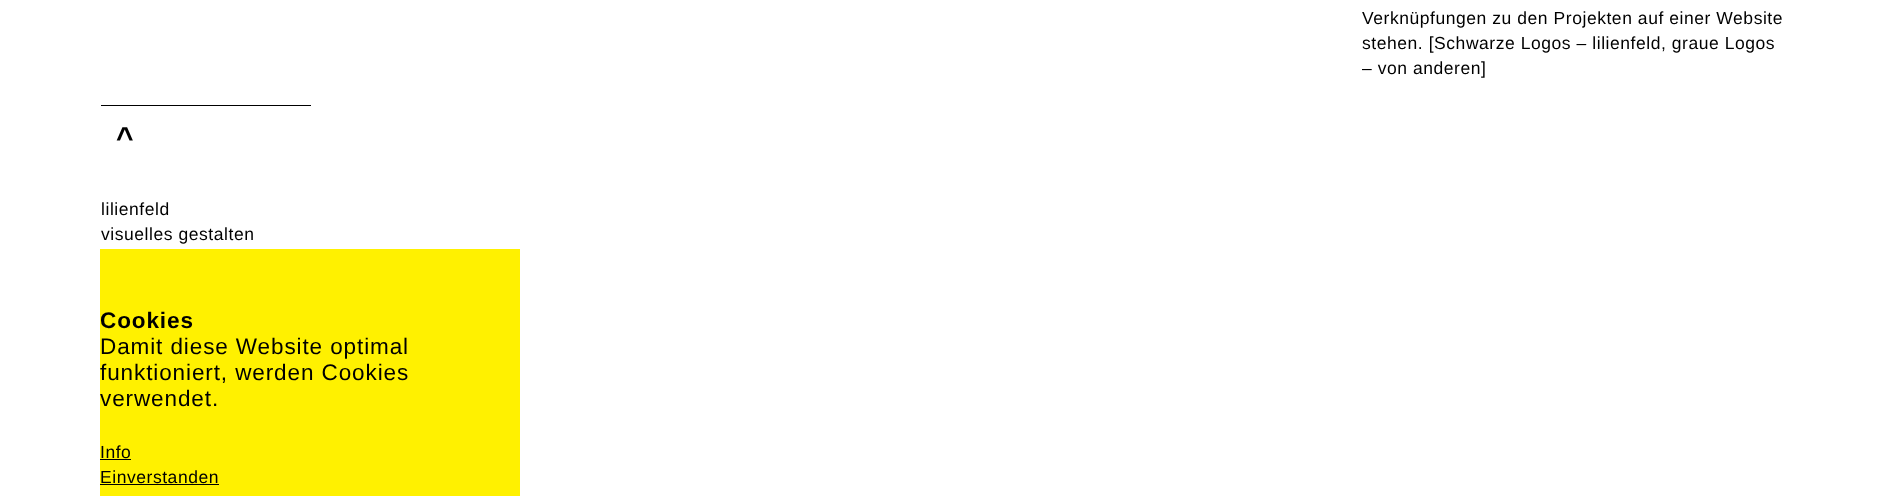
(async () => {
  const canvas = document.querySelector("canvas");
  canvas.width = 1882;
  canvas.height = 496;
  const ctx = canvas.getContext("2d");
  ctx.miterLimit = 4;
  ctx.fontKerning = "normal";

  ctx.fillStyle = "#ffffff";
  ctx.fillRect(0, 0, 1882, 496);
  for (const [x, y, w, h, color] of [
    [101, 105, 210, 1, "#000000"],
    [100, 249, 420, 247, "#fff100"],
    [100, 459, 31, 1, "#000000"],
    [100, 484, 119, 1, "#000000"],
  ]) {
    ctx.fillStyle = color;
    ctx.fillRect(x, y, w, h);
  }
  ctx.letterSpacing = "0.55px";
  ctx.font = "17.5px Liberation Sans";
  for (const [text, x, y] of [
    ["Verknüpfungen zu den Projekten auf einer Website", 1362, 24],
    ["stehen. [Schwarze Logos – lilienfeld, graue Logos", 1362, 49],
    ["– von anderen]", 1362, 74],
  ]) {
    ctx.fillText(text, x, y);
  }
  ctx.letterSpacing = "0.9px";
  ctx.font = "bold 30px Liberation Sans";
  ctx.fillText("^", 116, 148);
  ctx.letterSpacing = "0.55px";
  ctx.font = "17.5px Liberation Sans";
  ctx.fillText("lilienfeld", 101, 215);
  ctx.fillText("visuelles gestalten", 101, 240);
  ctx.letterSpacing = "0.9px";
  ctx.font = "bold 22.5px Liberation Sans";
  ctx.fillText("Cookies", 100, 328);
  ctx.font = "22.5px Liberation Sans";
  for (const [text, x, y] of [
    ["Damit diese Website optimal", 100, 354],
    ["funktioniert, werden Cookies", 100, 380],
    ["verwendet.", 100, 406],
  ]) {
    ctx.fillText(text, x, y);
  }
  ctx.letterSpacing = "0.55px";
  ctx.font = "17.5px Liberation Sans";
  ctx.fillText("Info", 100, 458);
  ctx.fillText("Einverstanden", 100, 483);
})();
